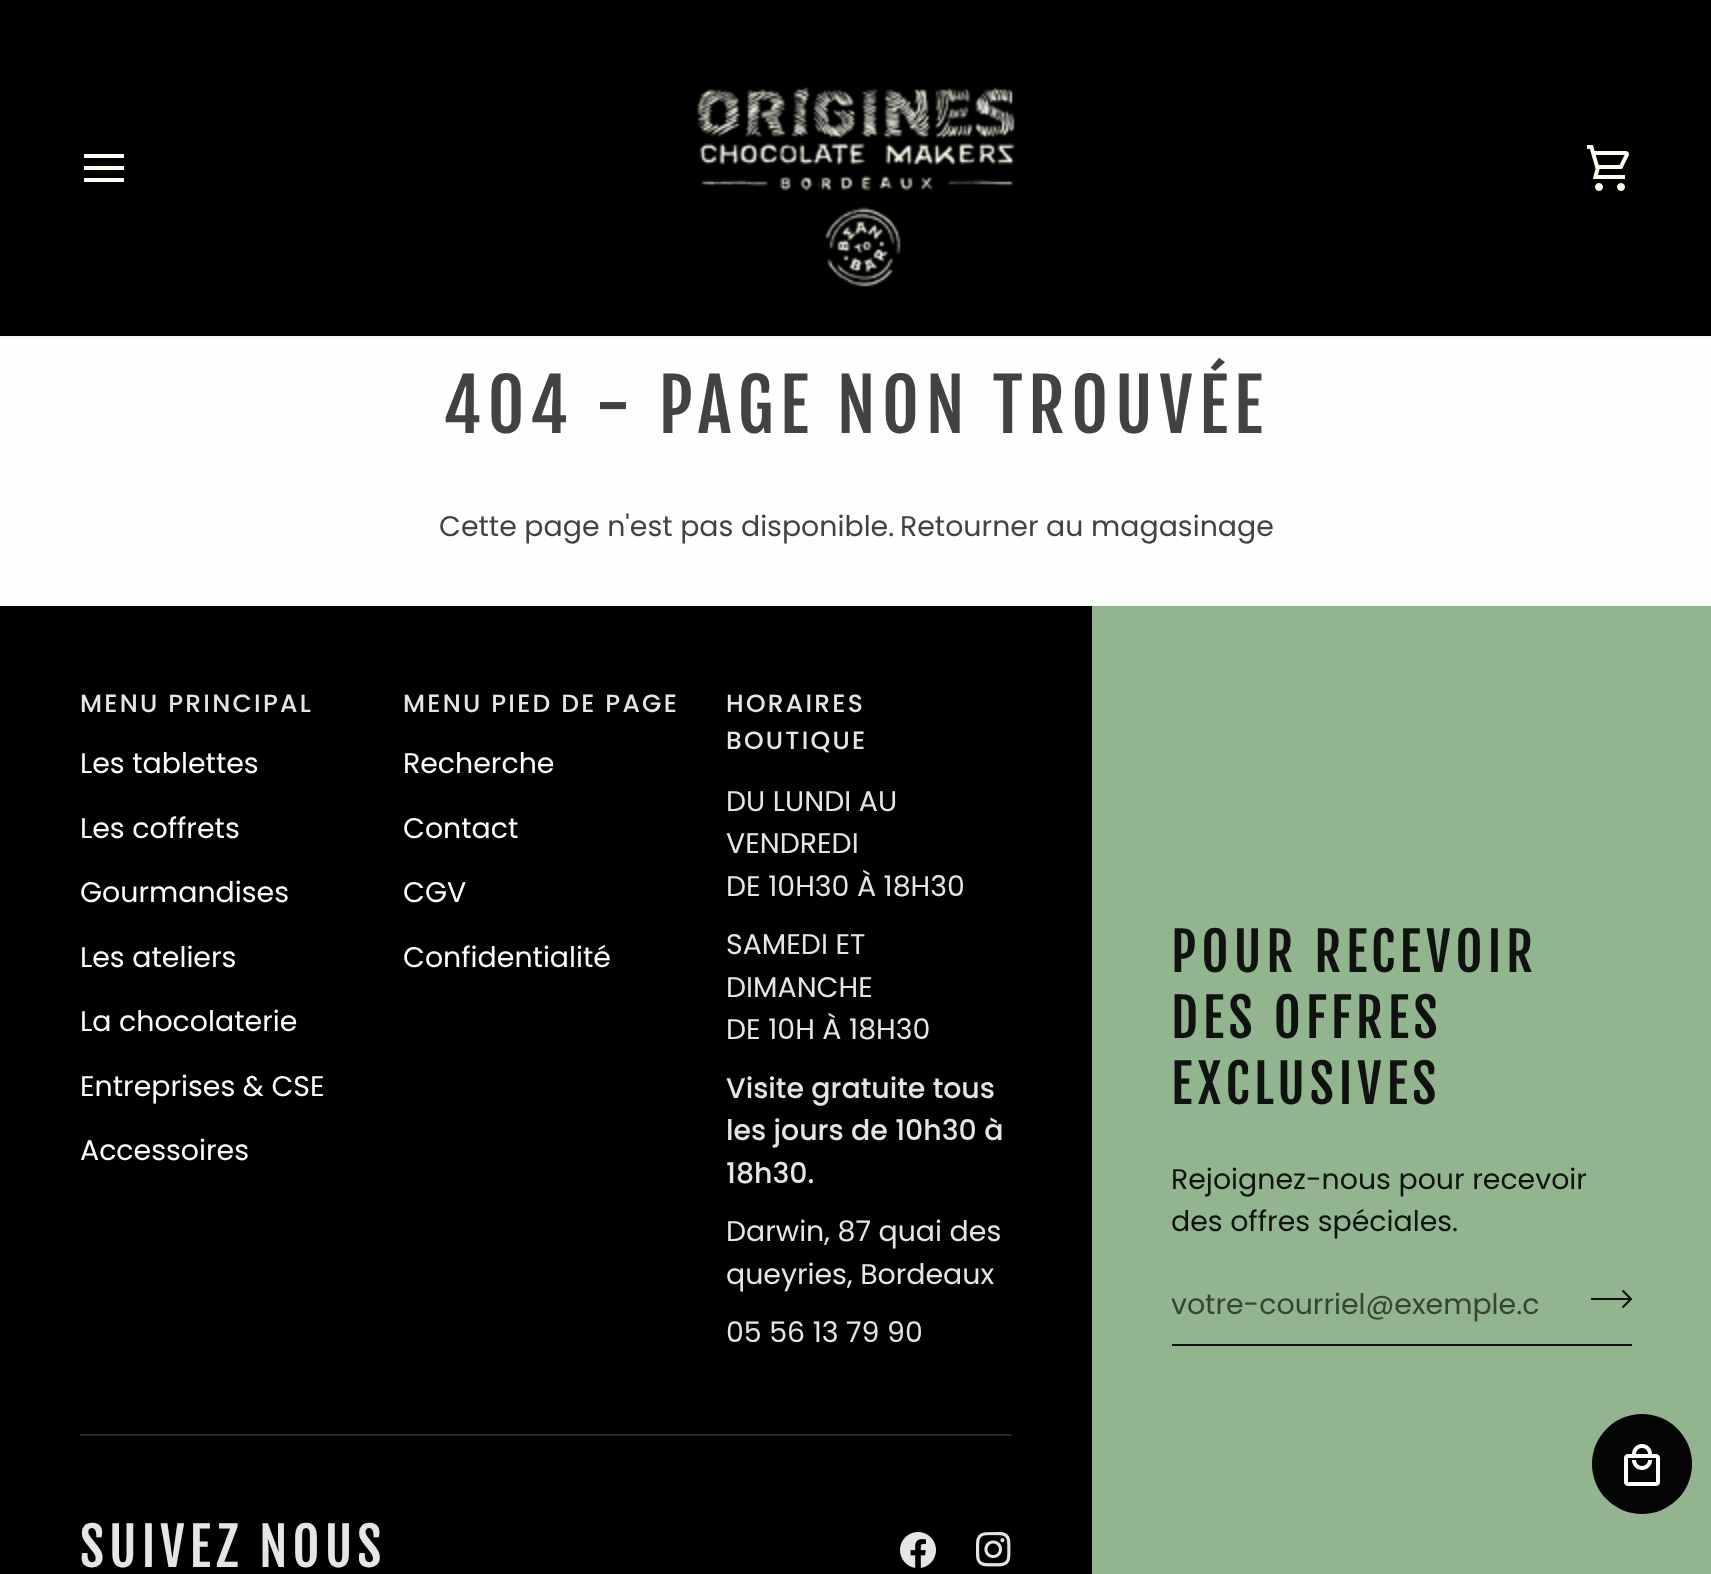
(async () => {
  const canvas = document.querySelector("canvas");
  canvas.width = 1711;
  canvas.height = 1574;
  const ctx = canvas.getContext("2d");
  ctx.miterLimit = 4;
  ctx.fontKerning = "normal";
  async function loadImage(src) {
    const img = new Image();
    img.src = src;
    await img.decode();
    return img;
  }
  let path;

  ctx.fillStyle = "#fefffc";
  ctx.fillRect(0, 0, 1711, 1574);
  ctx.fillStyle = "#000000";
  ctx.fillRect(0, 0, 1711, 336);
  ctx.fillStyle = "#f7f5f4";
  ctx.fillRect(0, 336, 1711, 2);
  path = new Path2D("M122 156H86M122 168H86M122 180H86");
  ctx.strokeStyle = "#fcfdf1";
  ctx.lineWidth = 4;
  ctx.lineCap = "square";
  ctx.stroke(path);
  ctx.drawImage(await loadImage("img/1.png"), 697, 87, 318, 200);
  ctx.drawImage(await loadImage("img/2.png"), 1587, 145, 42, 46);
  ctx.fillStyle = "#000000";
  ctx.fillRect(0, 606, 1092, 968);
  ctx.fillStyle = "#262626";
  ctx.fillRect(80, 1434, 932, 2);
  ctx.drawImage(await loadImage("img/3.png"), 900, 1532, 36, 36);
  ctx.drawImage(await loadImage("img/4.png"), 976, 1532, 35, 35);
  ctx.fillStyle = "#92b48f";
  ctx.fillRect(1092, 606, 619, 968);
  ctx.fillStyle = "#0f120e";
  ctx.fillRect(1172, 1344, 460, 2);
  path = new Path2D("M1622.5 1290.5L1631 1299L1622.5 1307.5M1591 1299H1631");
  ctx.strokeStyle = "#0f120e";
  ctx.lineWidth = 2.1;
  ctx.lineCap = "butt";
  ctx.stroke(path);
  ctx.fillStyle = "#040404";
  ctx.beginPath();
  ctx.arc(1642, 1464, 50, 0, Math.PI * 2);
  ctx.fill();
  ctx.drawImage(await loadImage("img/5.png"), 1624, 1444, 36, 42);
  ctx.letterSpacing = "6.4px";
  ctx.font = "71.4px Fjalla One";
  ctx.fillStyle = "#424242";
  ctx.fillText("404 - PAGE NON TROUVÉE", 443, 433);
  ctx.letterSpacing = "0px";
  ctx.font = "28.4px Poppins";
  ctx.fillText("Cette page n'est pas disponible.", 439, 536);
  ctx.fillText("Retourner au magasinage", 900, 536);
  ctx.letterSpacing = "2.25px";
  ctx.font = "500 25px Poppins";
  ctx.fillStyle = "#e5e6e3";
  ctx.fillText("MENU PRINCIPAL", 80, 712);
  ctx.letterSpacing = "0px";
  ctx.font = "28.4px Poppins";
  ctx.fillStyle = "#fefffc";
  for (const [text, x, y] of [
    ["Les tablettes", 80, 773],
    ["Les coffrets", 80, 838],
    ["Gourmandises", 80, 902],
    ["Les ateliers", 80, 967],
    ["La chocolaterie", 80, 1031],
    ["Entreprises & CSE", 80, 1096],
    ["Accessoires", 80, 1160],
  ]) {
    ctx.fillText(text, x, y);
  }
  ctx.letterSpacing = "2.25px";
  ctx.font = "500 25px Poppins";
  ctx.fillStyle = "#e5e6e3";
  ctx.fillText("MENU PIED DE PAGE", 403, 712);
  ctx.letterSpacing = "0px";
  ctx.font = "28.4px Poppins";
  ctx.fillStyle = "#fefffc";
  for (const [text, x, y] of [
    ["Recherche", 403, 773],
    ["Contact", 403, 838],
    ["CGV", 403, 902],
    ["Confidentialité", 403, 967],
  ]) {
    ctx.fillText(text, x, y);
  }
  ctx.letterSpacing = "2.25px";
  ctx.font = "500 25px Poppins";
  ctx.fillStyle = "#e5e6e3";
  ctx.fillText("HORAIRES", 726, 712);
  ctx.fillText("BOUTIQUE", 726, 749);
  ctx.letterSpacing = "0px";
  ctx.font = "28.4px Poppins";
  for (const [text, x, y] of [
    ["DU LUNDI AU", 726, 811],
    ["VENDREDI", 726, 853],
    ["DE 10H30 À 18H30", 726, 896],
    ["SAMEDI ET", 726, 954],
    ["DIMANCHE", 726, 997],
    ["DE 10H À 18H30", 726, 1039],
  ]) {
    ctx.fillText(text, x, y);
  }
  ctx.font = "500 28.4px Poppins";
  for (const [text, x, y] of [
    ["Visite gratuite tous", 726, 1098],
    ["les jours de 10h30 à", 726, 1140],
    ["18h30.", 726, 1183],
  ]) {
    ctx.fillText(text, x, y);
  }
  ctx.font = "28.4px Poppins";
  for (const [text, x, y] of [
    ["Darwin, 87 quai des", 726, 1241],
    ["queyries, Bordeaux", 726, 1284],
    ["05 56 13 79 90", 726, 1342],
  ]) {
    ctx.fillText(text, x, y);
  }
  ctx.letterSpacing = "4.75px";
  ctx.font = "52.5px Fjalla One";
  ctx.fillText("SUIVEZ NOUS", 80, 1567);
  ctx.fillStyle = "#0f120e";
  for (const [text, x, y] of [
    ["POUR RECEVOIR", 1171, 972],
    ["DES OFFRES", 1171, 1038],
    ["EXCLUSIVES", 1171, 1104],
  ]) {
    ctx.fillText(text, x, y);
  }
  ctx.letterSpacing = "0px";
  ctx.font = "28.4px Poppins";
  ctx.fillText("Rejoignez-nous pour recevoir", 1171, 1189);
  ctx.fillText("des offres spéciales.", 1171, 1231);
  ctx.fillStyle = "#364335";
  ctx.fillText("votre-courriel@exemple.c", 1171, 1314);
})();
